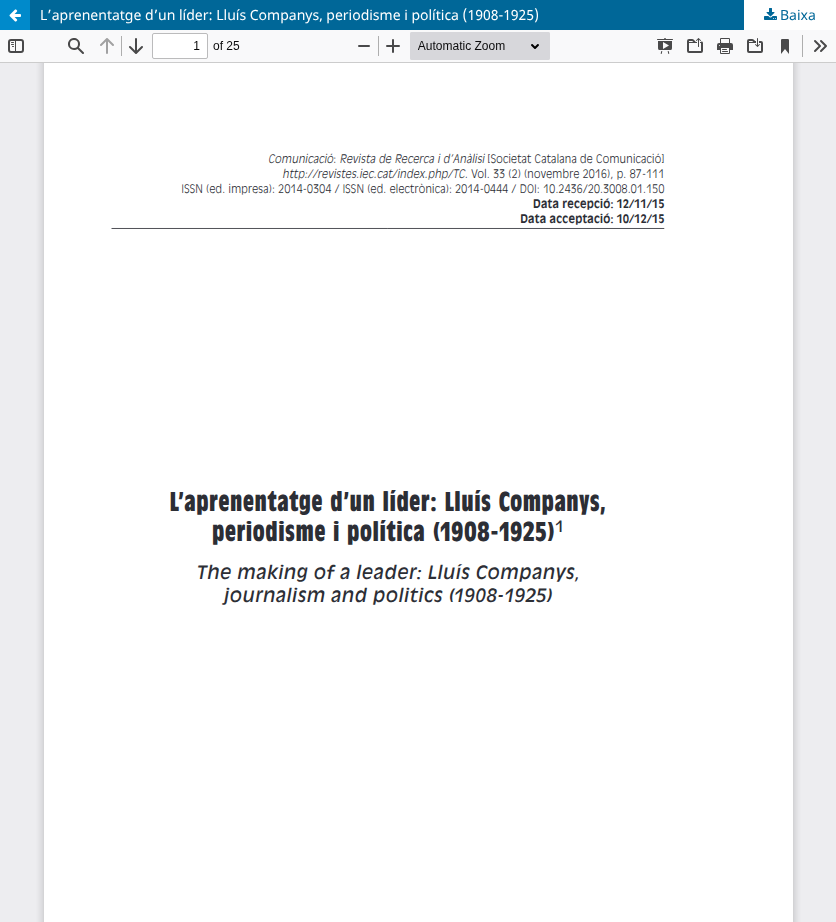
(async () => {
  const canvas = document.querySelector("canvas");
  canvas.width = 836;
  canvas.height = 922;
  const ctx = canvas.getContext("2d");
  ctx.miterLimit = 4;
  ctx.fontKerning = "normal";
  async function loadImage(src) {
    const img = new Image();
    img.src = src;
    await img.decode();
    return img;
  }

  ctx.fillStyle = "#ffffff";
  ctx.fillRect(0, 0, 836, 922);
  ctx.fillStyle = "#006798";
  ctx.fillRect(30, 0, 714, 30);
  ctx.fillStyle = "#008acb";
  ctx.fillRect(0, 0, 30, 30);
  ctx.drawImage(await loadImage("img/1.png"), 9, 9, 12, 13);
  ctx.drawImage(await loadImage("img/2.png"), 764, 8, 13, 12);
  ctx.drawImage(await loadImage("img/3.png"), 0, 30, 836, 892);
  ctx.font = "14px Noto Sans";
  ctx.fillStyle = "#ffffff";
  ctx.fillText("L’aprenentatge d’un líder: Lluís Companys, periodisme i política (1908-1925)", 40, 20);
  ctx.fillStyle = "#006798";
  ctx.fillText("Baixa", 780, 20);
})();
